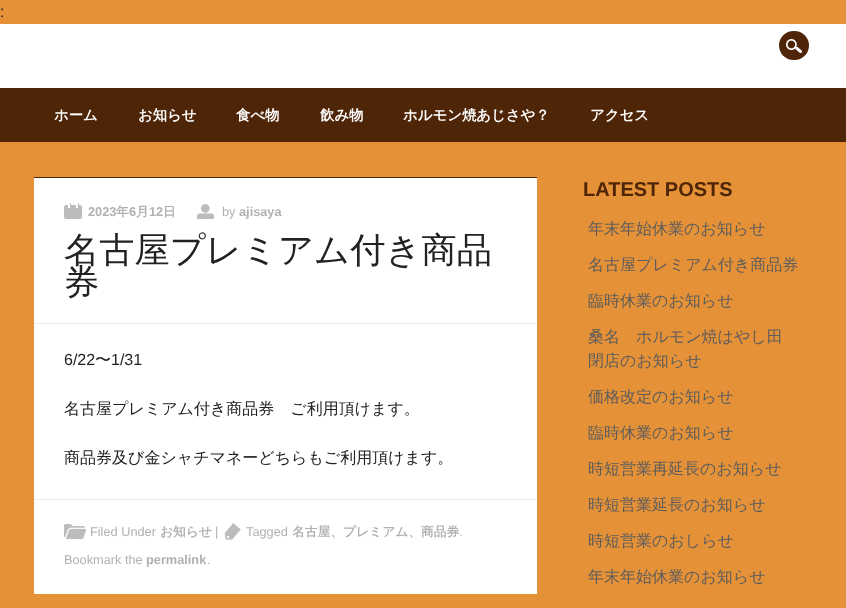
(async () => {
  const canvas = document.querySelector("canvas");
  canvas.width = 846;
  canvas.height = 608;
  const ctx = canvas.getContext("2d");
  ctx.miterLimit = 4;
  ctx.fontKerning = "normal";
  async function loadImage(src) {
    const img = new Image();
    img.src = src;
    await img.decode();
    return img;
  }

  ctx.fillStyle = "#e59137";
  ctx.fillRect(0, 0, 846, 608);
  ctx.fillStyle = "#ffffff";
  ctx.fillRect(0, 24, 846, 64);
  ctx.fillStyle = "#4f2507";
  ctx.beginPath();
  ctx.roundRect(779, 31, 30, 29, 14.5);
  ctx.fill();
  ctx.drawImage(await loadImage("img/1.png"), 786, 39, 16, 14);
  for (const [x, y, w, h, color] of [
    [0, 88, 846, 54, "#4f2507"],
    [34, 178, 503, 416, "#ffffff"],
    [34, 177, 503, 1, "#4f2507"],
  ]) {
    ctx.fillStyle = color;
    ctx.fillRect(x, y, w, h);
  }
  ctx.drawImage(await loadImage("img/2.png"), 64, 203, 18, 16);
  ctx.drawImage(await loadImage("img/3.png"), 197, 204, 17, 15);
  ctx.fillStyle = "#ebebeb";
  ctx.fillRect(34, 323, 503, 1);
  ctx.fillRect(34, 499, 503, 1);
  ctx.drawImage(await loadImage("img/4.png"), 64, 524, 22, 15);
  ctx.drawImage(await loadImage("img/5.png"), 224, 523, 17, 17);
  ctx.font = "16px Liberation Sans";
  ctx.fillStyle = "#222222";
  ctx.fillText(":", 0, 17);
  ctx.font = "bold 14.4px WenQuanYi Zen Hei";
  ctx.fillStyle = "#ffffff";
  for (const [text, x, y] of [
    ["ホーム", 54, 120],
    ["お知らせ", 138, 120],
    ["食べ物", 236, 120],
    ["飲み物", 320, 120],
    ["ホルモン焼あじさや？", 403, 120],
    ["アクセス", 590, 120],
  ]) {
    ctx.fillText(text, x, y);
  }
  ctx.font = "bold 12.75px Liberation Sans";
  ctx.fillStyle = "#b1b1b1";
  ctx.fillText("2023", 88, 216);
  ctx.font = "bold 12.75px WenQuanYi Zen Hei";
  ctx.fillText("年", 116, 216);
  ctx.font = "bold 12.75px Liberation Sans";
  ctx.fillText("6", 129, 216);
  ctx.font = "bold 12.75px WenQuanYi Zen Hei";
  ctx.fillText("月", 136, 216);
  ctx.font = "bold 12.75px Liberation Sans";
  ctx.fillText("12", 149, 216);
  ctx.font = "bold 12.75px WenQuanYi Zen Hei";
  ctx.fillText("日", 163, 216);
  ctx.font = "12.75px Liberation Sans";
  ctx.fillText("by", 222, 216);
  ctx.font = "bold 12.75px Liberation Sans";
  ctx.fillText("ajisaya", 239, 216);
  ctx.font = "500 35.25px WenQuanYi Zen Hei";
  ctx.fillStyle = "#222222";
  ctx.fillText("名古屋プレミアム付き商品", 64, 262);
  ctx.fillText("券", 64, 294);
  ctx.font = "16px Liberation Sans";
  ctx.fillText("6/22", 64, 365);
  ctx.font = "500 16px WenQuanYi Zen Hei";
  ctx.fillText("〜", 95, 365);
  ctx.font = "16px Liberation Sans";
  ctx.fillText("1/31", 111, 365);
  ctx.font = "500 16px WenQuanYi Zen Hei";
  ctx.fillText("名古屋プレミアム付き商品券　ご利用頂けます。", 64, 414);
  ctx.fillText("商品券及び金シャチマネーどちらもご利用頂けます。", 64, 463);
  ctx.font = "12.75px Liberation Sans";
  ctx.fillStyle = "#b1b1b1";
  ctx.fillText("Filed Under", 90, 536);
  ctx.font = "bold 12.75px WenQuanYi Zen Hei";
  ctx.fillText("お知らせ", 160, 536);
  ctx.font = "12.75px Liberation Sans";
  ctx.fillText("|", 215, 536);
  ctx.fillText("Tagged", 246, 536);
  ctx.font = "bold 12.75px WenQuanYi Zen Hei";
  ctx.fillText("名古屋、プレミアム、商品券", 292, 536);
  ctx.font = "12.75px Liberation Sans";
  ctx.fillText(".", 459, 536);
  ctx.fillText("Bookmark the", 64, 564);
  ctx.font = "bold 12.75px Liberation Sans";
  ctx.fillText("permalink", 146, 564);
  ctx.font = "12.75px Liberation Sans";
  ctx.fillText(".", 207, 564);
  ctx.font = "bold 20px Liberation Sans";
  ctx.fillStyle = "#4f2507";
  ctx.fillText("LATEST POSTS", 583, 196);
  ctx.font = "500 16px WenQuanYi Zen Hei";
  ctx.fillStyle = "#5e5d5c";
  for (const [text, x, y] of [
    ["年末年始休業のお知らせ", 588, 234],
    ["名古屋プレミアム付き商品券", 588, 270],
    ["臨時休業のお知らせ", 588, 306],
    ["桑名　ホルモン焼はやし田", 588, 342],
    ["閉店のお知らせ", 588, 366],
    ["価格改定のお知らせ", 588, 402],
    ["臨時休業のお知らせ", 588, 438],
    ["時短営業再延長のお知らせ", 588, 474],
    ["時短営業延長のお知らせ", 588, 510],
    ["時短営業のおしらせ", 588, 546],
    ["年末年始休業のお知らせ", 588, 582],
  ]) {
    ctx.fillText(text, x, y);
  }
})();
